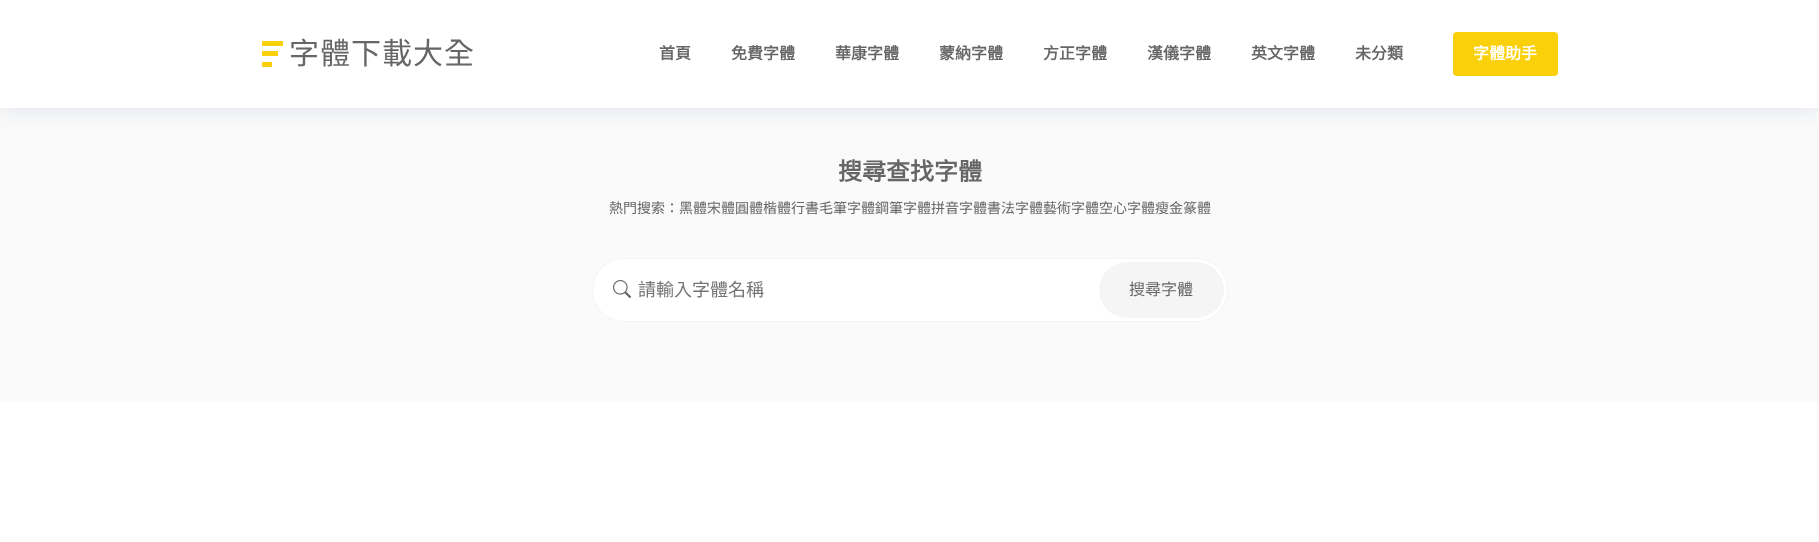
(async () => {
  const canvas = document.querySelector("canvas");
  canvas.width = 1819;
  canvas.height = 542;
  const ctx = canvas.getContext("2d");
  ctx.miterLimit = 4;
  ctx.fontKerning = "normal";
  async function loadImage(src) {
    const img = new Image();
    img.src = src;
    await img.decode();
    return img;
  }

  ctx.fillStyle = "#ffffff";
  ctx.fillRect(0, 0, 1819, 542);
  ctx.fillStyle = "#fafafa";
  ctx.fillRect(0, 108, 1819, 294);
  ctx.fillStyle = "rgba(1, 41, 112, 0.1)";
  ctx.filter = "blur(10px)";
  ctx.beginPath();
  ctx.rect(0, 2, 1819, 108);
  ctx.fill();
  ctx.filter = "none";
  ctx.fillStyle = "#ffffff";
  ctx.fillRect(0, 0, 1819, 108);
  ctx.drawImage(await loadImage("img/1.png"), 262, 41, 21, 26);
  ctx.fillStyle = "#fad00b";
  ctx.beginPath();
  ctx.roundRect(1453, 32, 105, 44, 4);
  ctx.fill();
  ctx.fillStyle = "#ffffff";
  ctx.beginPath();
  ctx.roundRect(592.5, 258.5, 635, 63, 31.5);
  ctx.fill();
  ctx.strokeStyle = "#f5f5f5";
  ctx.stroke();
  ctx.drawImage(await loadImage("img/2.png"), 613, 280, 18, 18);
  ctx.fillStyle = "#f5f5f5";
  ctx.beginPath();
  ctx.roundRect(1099, 262, 125, 56, 28);
  ctx.fill();
  ctx.letterSpacing = "1px";
  ctx.font = "30px Noto Sans CJK HK";
  ctx.fillStyle = "#666666";
  ctx.fillText("字體下載大全", 289, 64);
  ctx.letterSpacing = "0px";
  ctx.font = "bold 16px Noto Sans CJK HK";
  for (const [text, x, y] of [
    ["首頁", 659, 59],
    ["免費字體", 731, 59],
    ["華康字體", 835, 59],
    ["蒙納字體", 939, 59],
    ["方正字體", 1043, 59],
    ["漢儀字體", 1147, 59],
    ["英文字體", 1251, 59],
    ["未分類", 1355, 59],
  ]) {
    ctx.fillText(text, x, y);
  }
  ctx.fillStyle = "#ffffff";
  ctx.fillText("字體助手", 1473, 59);
  ctx.font = "bold 24px Noto Sans CJK HK";
  ctx.fillStyle = "#666666";
  ctx.fillText("搜尋查找字體", 838, 180);
  ctx.font = "14px Noto Sans CJK HK";
  ctx.fillText("熱門搜索：黑體宋體圓體楷體行書毛筆字體鋼筆字體拼音字體書法字體藝術字體空心字體瘦金篆體", 609, 213);
  ctx.font = "18px Noto Sans CJK HK";
  ctx.fillStyle = "#757575";
  ctx.fillText("請輸入字體名稱", 638, 296);
  ctx.font = "16px Noto Sans CJK HK";
  ctx.fillStyle = "#666666";
  ctx.fillText("搜尋字體", 1129, 295);
})();
